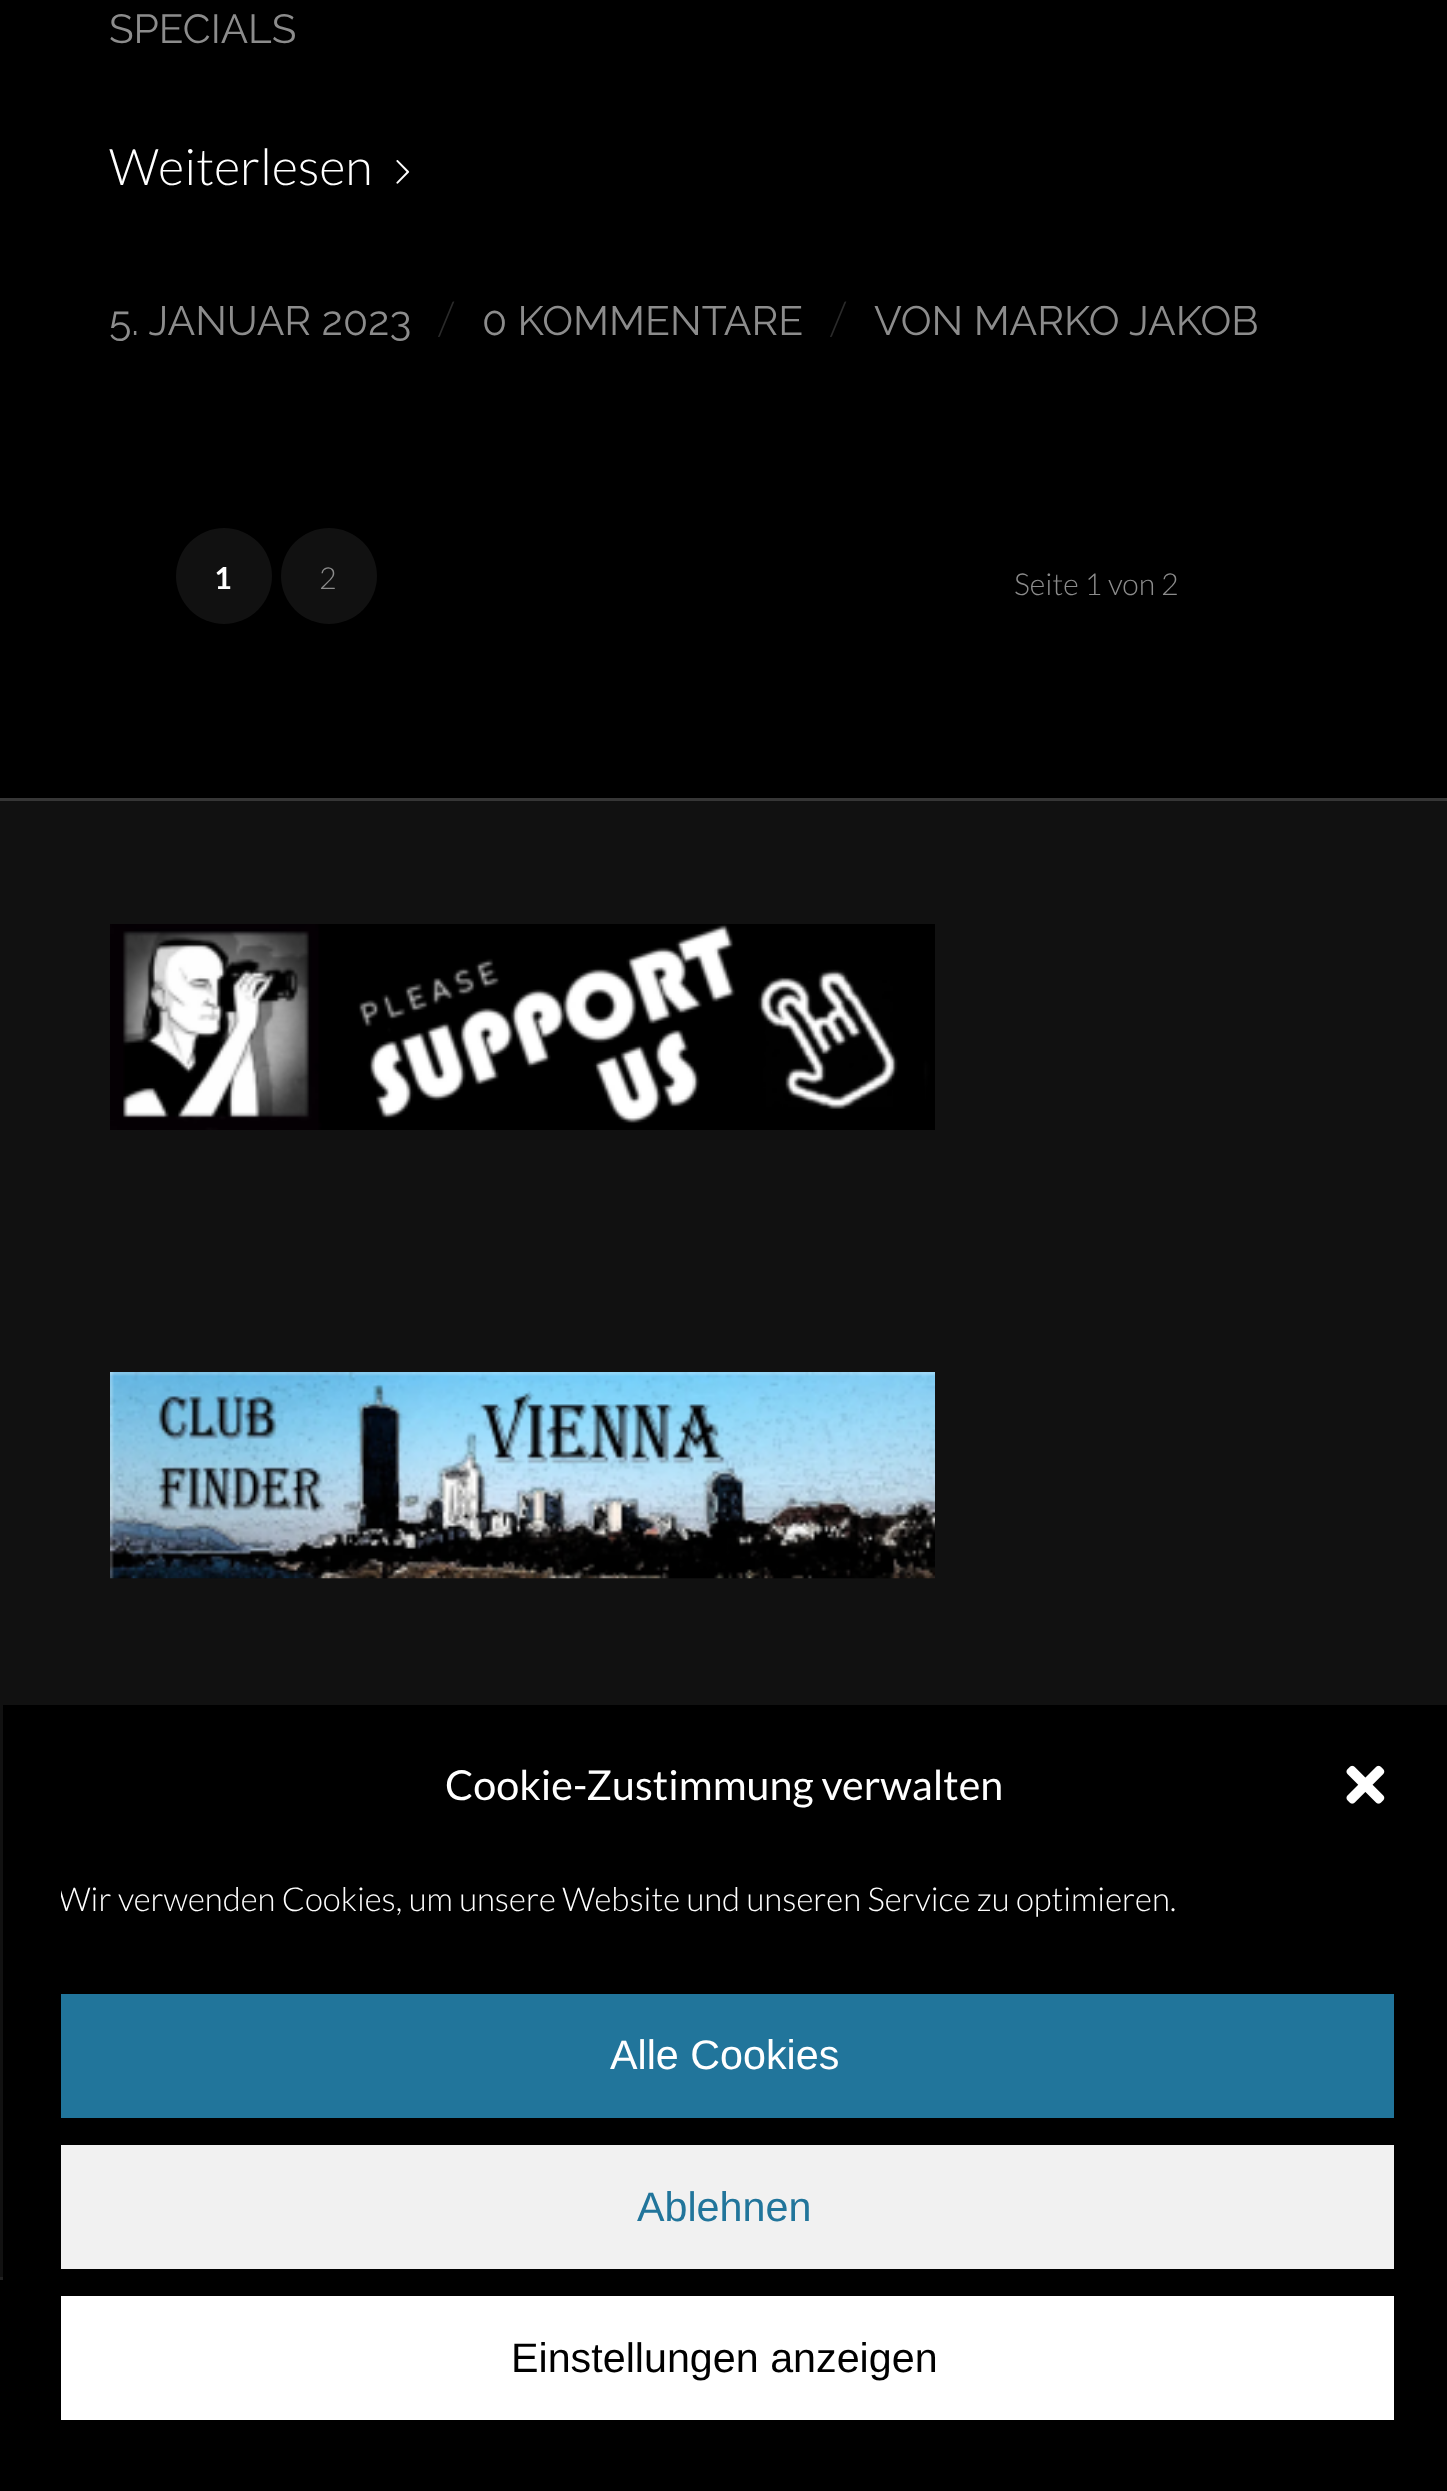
(async () => {
  const canvas = document.querySelector("canvas");
  canvas.width = 1447;
  canvas.height = 2491;
  const ctx = canvas.getContext("2d");
  ctx.miterLimit = 4;
  ctx.fontKerning = "normal";
  async function loadImage(src) {
    const img = new Image();
    img.src = src;
    await img.decode();
    return img;
  }

  ctx.fillStyle = "#000000";
  ctx.fillRect(0, 0, 1447, 2491);
  ctx.drawImage(await loadImage("img/1.png"), 396, 160, 14, 24);
  ctx.fillStyle = "#111111";
  ctx.beginPath();
  ctx.arc(224, 576, 48, 0, Math.PI * 2);
  ctx.fill();
  ctx.beginPath();
  ctx.arc(329, 576, 48, 0, Math.PI * 2);
  ctx.fill();
  ctx.fillRect(0, 801, 1447, 1476);
  ctx.fillStyle = "#363636";
  ctx.fillRect(0, 798, 1447, 3);
  ctx.drawImage(await loadImage("img/2.png"), 110, 924, 825, 206);
  ctx.drawImage(await loadImage("img/3.png"), 110, 1372, 825, 207);
  ctx.fillStyle = "#222222";
  ctx.fillRect(0, 2277, 3, 3);
  ctx.fillStyle = "#000000";
  ctx.fillRect(3, 1705, 1444, 572);
  ctx.drawImage(await loadImage("img/4.png"), 1346, 1765, 39, 39);
  for (const [x, y, w, h, color] of [
    [61, 1994, 1333, 124, "#21759b"],
    [61, 2145, 1333, 124, "#f1f1f1"],
    [61, 2296, 1333, 124, "#ffffff"],
  ]) {
    ctx.fillStyle = color;
    ctx.fillRect(x, y, w, h);
  }
  ctx.font = "100 40.5px Raleway";
  ctx.fillStyle = "#8c8c8c";
  ctx.fillText("SPECIALS", 109, 43);
  ctx.font = "300 50.5px Lato";
  ctx.fillStyle = "#ffffff";
  ctx.fillText("Weiterlesen", 109, 185);
  ctx.font = "100 41px Raleway";
  ctx.fillStyle = "#8c8c8c";
  ctx.fillText("5. JANUAR 2023", 109, 335);
  ctx.font = "300 46px Lato";
  ctx.fillStyle = "#2a2a2a";
  ctx.fillText("/", 438, 335);
  ctx.font = "100 41px Raleway";
  ctx.fillStyle = "#8c8c8c";
  ctx.fillText("0 KOMMENTARE", 482, 335);
  ctx.font = "300 46px Lato";
  ctx.fillStyle = "#2a2a2a";
  ctx.fillText("/", 830, 335);
  ctx.font = "100 41px Raleway";
  ctx.fillStyle = "#8c8c8c";
  ctx.fillText("VON MARKO JAKOB", 874, 335);
  ctx.font = "bold 30.25px Lato";
  ctx.fillStyle = "#ffffff";
  ctx.fillText("1", 214, 589);
  ctx.font = "300 30.25px Lato";
  ctx.fillStyle = "#8c8c8c";
  ctx.fillText("2", 319, 589);
  ctx.fillText("Seite 1 von 2", 1014, 595);
  ctx.font = "41.25px Lato";
  ctx.fillStyle = "#ffffff";
  ctx.fillText("Cookie-Zustimmung verwalten", 445, 1800);
  ctx.save();
  ctx.beginPath();
  ctx.rect(61, 1876, 1333, 63);
  ctx.clip();
  ctx.font = "300 33px Lato";
  ctx.fillText("Wir verwenden Cookies, um unsere Website und unseren Service zu optimieren.", 58, 1911);
  ctx.restore();
  ctx.font = "41.25px Liberation Sans";
  ctx.fillText("Alle Cookies", 610, 2069);
  ctx.fillStyle = "#21759b";
  ctx.fillText("Ablehnen", 637, 2221);
  ctx.fillStyle = "#000000";
  ctx.fillText("Einstellungen anzeigen", 511, 2372);
})();
